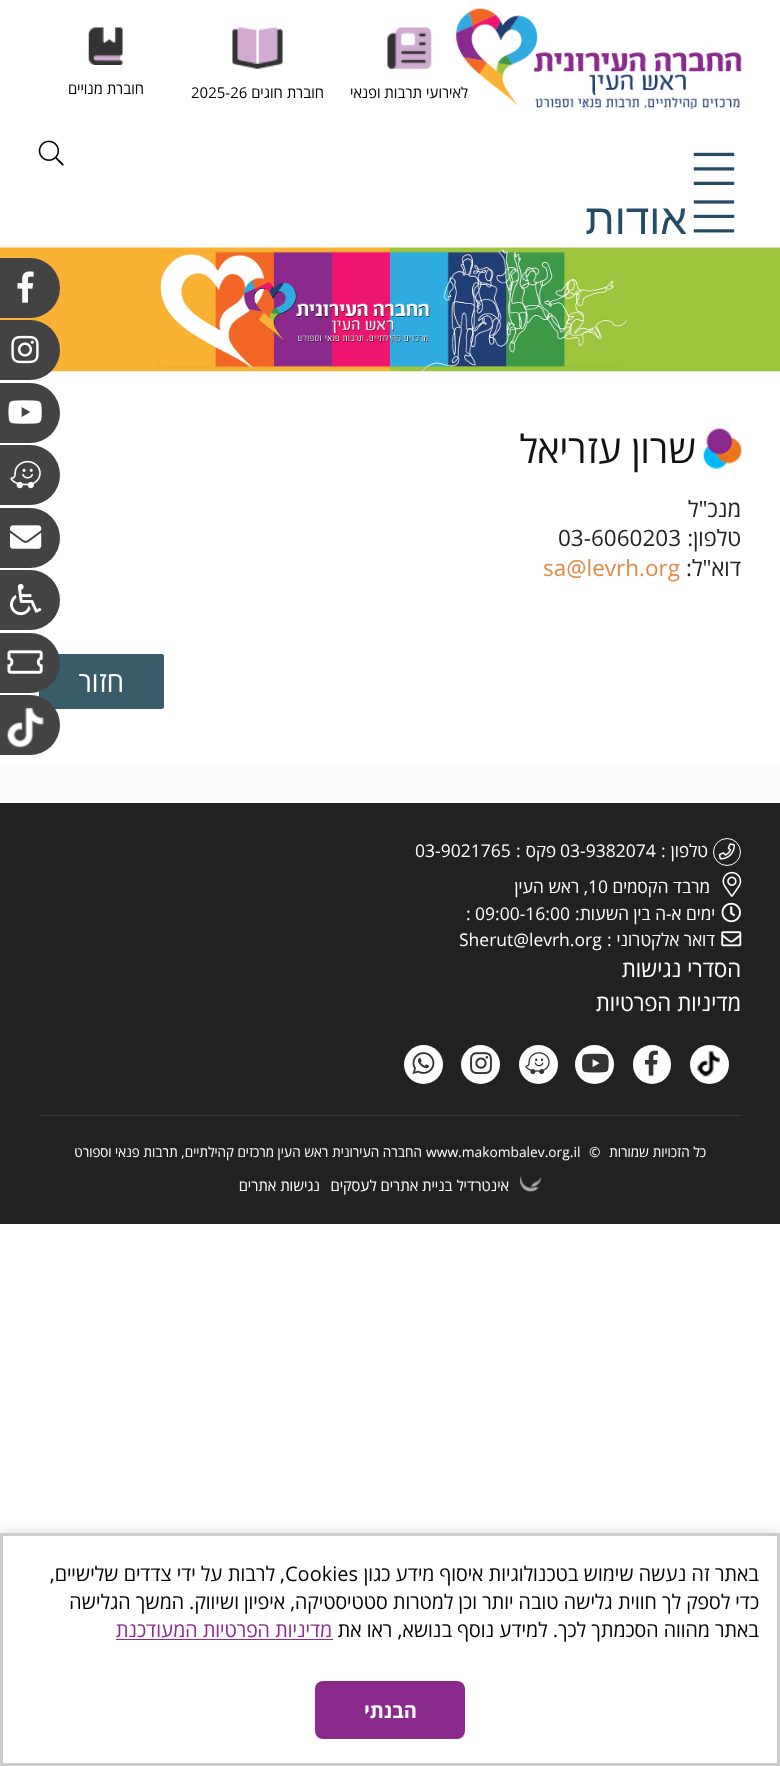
(async () => {
  const canvas = document.querySelector("canvas");
  canvas.width = 780;
  canvas.height = 1766;
  const ctx = canvas.getContext("2d");
  ctx.miterLimit = 4;
  ctx.fontKerning = "normal";
  async function loadImage(src) {
    const img = new Image();
    img.src = src;
    await img.decode();
    return img;
  }

  ctx.fillStyle = "#ffffff";
  ctx.fillRect(0, 0, 780, 1766);
  ctx.drawImage(await loadImage("img/2.png"), 387, 27, 45, 42);
  ctx.drawImage(await loadImage("img/3.png"), 232, 27, 51, 42);
  ctx.drawImage(await loadImage("img/4.png"), 88, 27, 35, 38);
  ctx.drawImage(await loadImage("img/5.png"), 693, 152, 42, 33);
  ctx.drawImage(await loadImage("img/6.png"), 38, 140, 26, 26);
  ctx.drawImage(await loadImage("img/7.png"), 693, 200, 42, 33);
  ctx.drawImage(await loadImage("img/8.png"), 0, 247, 780, 125);
  ctx.drawImage(await loadImage("img/9.png"), 703, 428, 39, 41);
  ctx.fillStyle = "#395c6b";
  ctx.beginPath();
  ctx.roundRect(39, 654, 125, 55, 2.5);
  ctx.fill();
  for (const [x, y, w, h, color] of [
    [0, 765, 780, 38, "#fbfbfb"],
    [0, 803, 780, 421, "#212121"],
    [39, 1115, 702, 1, "#393939"],
  ]) {
    ctx.fillStyle = color;
    ctx.fillRect(x, y, w, h);
  }
  ctx.beginPath();
  ctx.arc(727, 852, 13.5, 0, Math.PI * 2);
  ctx.strokeStyle = "#ffffff";
  ctx.stroke();
  ctx.drawImage(await loadImage("img/10.png"), 718, 843, 17, 17);
  ctx.drawImage(await loadImage("img/11.png"), 722, 871, 20, 26);
  ctx.drawImage(await loadImage("img/12.png"), 721, 902, 20, 21);
  ctx.drawImage(await loadImage("img/13.png"), 721, 931, 21, 16);
  ctx.fillStyle = "#ffffff";
  ctx.beginPath();
  ctx.arc(709.5, 1064.5, 19.5, 0, Math.PI * 2);
  ctx.fill();
  ctx.drawImage(await loadImage("img/14.png"), 697, 1051, 24, 26);
  ctx.beginPath();
  ctx.roundRect(633, 1045, 38, 39, 19);
  ctx.fill();
  ctx.drawImage(await loadImage("img/15.png"), 645, 1050, 13, 26);
  ctx.beginPath();
  ctx.arc(594.5, 1064.5, 19.5, 0, Math.PI * 2);
  ctx.fill();
  ctx.drawImage(await loadImage("img/16.png"), 582, 1053, 27, 20);
  ctx.beginPath();
  ctx.arc(538.5, 1064.5, 19.5, 0, Math.PI * 2);
  ctx.fill();
  ctx.drawImage(await loadImage("img/17.png"), 525, 1052, 25, 23);
  ctx.beginPath();
  ctx.arc(480.5, 1064.5, 19.5, 0, Math.PI * 2);
  ctx.fill();
  ctx.drawImage(await loadImage("img/18.png"), 470, 1052, 22, 23);
  ctx.beginPath();
  ctx.arc(423.5, 1064.5, 19.5, 0, Math.PI * 2);
  ctx.fill();
  ctx.drawImage(await loadImage("img/19.png"), 412, 1052, 23, 22);
  ctx.drawImage(await loadImage("img/20.png"), 520, 1176, 22, 16);
  ctx.fillStyle = "#434343";
  ctx.beginPath();
  ctx.roundRect(0, 258, 60, 60, [0, 30, 30, 0]);
  ctx.fill();
  ctx.drawImage(await loadImage("img/21.png"), 17, 271, 17, 32);
  ctx.beginPath();
  ctx.roundRect(0, 320, 60, 60, [0, 30, 30, 0]);
  ctx.fill();
  ctx.drawImage(await loadImage("img/22.png"), 11, 335, 28, 29);
  ctx.beginPath();
  ctx.roundRect(0, 383, 60, 60, [0, 30, 30, 0]);
  ctx.fill();
  ctx.drawImage(await loadImage("img/23.png"), 8, 400, 34, 24);
  ctx.beginPath();
  ctx.roundRect(0, 445, 60, 60, [0, 30, 30, 0]);
  ctx.fill();
  ctx.drawImage(await loadImage("img/24.png"), 10, 460, 31, 29);
  ctx.beginPath();
  ctx.roundRect(0, 508, 60, 60, [0, 30, 30, 0]);
  ctx.fill();
  ctx.drawImage(await loadImage("img/25.png"), 10, 525, 32, 24);
  ctx.beginPath();
  ctx.roundRect(0, 570, 60, 60, [0, 30, 30, 0]);
  ctx.fill();
  ctx.drawImage(await loadImage("img/26.png"), 10, 583, 32, 33);
  ctx.beginPath();
  ctx.roundRect(0, 633, 60, 60, [0, 30, 30, 0]);
  ctx.fill();
  ctx.drawImage(await loadImage("img/27.png"), 7, 650, 36, 24);
  ctx.beginPath();
  ctx.roundRect(0, 695, 60, 60, [0, 30, 30, 0]);
  ctx.fill();
  ctx.drawImage(await loadImage("img/28.png"), 6, 707, 38, 41);
  ctx.fillStyle = "rgba(0, 0, 0, 0.1)";
  ctx.filter = "blur(6px)";
  ctx.beginPath();
  ctx.rect(0, 1530, 780, 234);
  ctx.fill();
  ctx.filter = "none";
  ctx.fillStyle = "#ffffff";
  ctx.beginPath();
  ctx.rect(1.5, 1534.5, 777, 230);
  ctx.fill();
  ctx.strokeStyle = "#cccccc";
  ctx.lineWidth = 3;
  ctx.stroke();
  ctx.fillStyle = "#8b2a8d";
  ctx.fillRect(116, 1639, 217, 1);
  ctx.beginPath();
  ctx.roundRect(315, 1681, 150, 58, 8);
  ctx.fill();
  ctx.direction = "rtl";
  ctx.font = "15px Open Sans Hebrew";
  ctx.fillStyle = "#000000";
  ctx.fillText("לאירועי תרבות ופנאי", 468, 98);
  ctx.drawImage(await loadImage("img/1.png"), 456, 8, 286, 101);
  ctx.fillText("חוברת חוגים", 324, 98);
  ctx.direction = "ltr";
  ctx.fillText("2025-26", 191, 98);
  ctx.direction = "rtl";
  ctx.fillText("חוברת מנויים", 144, 94);
  ctx.font = "42.5px Liberation Sans";
  ctx.fillStyle = "#254b65";
  ctx.fillText("אודות", 687, 234);
  ctx.font = "38.75px Open Sans Hebrew";
  ctx.fillStyle = "#121212";
  ctx.fillText("שרון עזריאל", 696, 463);
  ctx.font = "22.5px Open Sans Hebrew";
  ctx.fillStyle = "#222222";
  ctx.fillText("מנכ\"ל", 741, 517);
  ctx.fillText("טלפון:", 741, 546);
  ctx.direction = "ltr";
  ctx.fillText("03-6060203", 558, 546);
  ctx.direction = "rtl";
  ctx.fillText("דוא\"ל:", 741, 576);
  ctx.direction = "ltr";
  ctx.fillStyle = "#e58845";
  ctx.fillText("sa@levrh.org", 543, 576);
  ctx.direction = "rtl";
  ctx.font = "28px Open Sans Hebrew";
  ctx.fillStyle = "#ffffff";
  ctx.fillText("חזור", 124, 692);
  ctx.font = "17.5px Open Sans Hebrew";
  ctx.fillText("טלפון", 708, 857);
  ctx.direction = "ltr";
  ctx.fillText(":", 661, 857);
  ctx.fillText("03-9382074", 560, 857);
  ctx.direction = "rtl";
  ctx.fillText("פקס", 556, 857);
  ctx.direction = "ltr";
  ctx.fillText(":", 516, 857);
  ctx.fillText("03-9021765", 415, 857);
  ctx.direction = "rtl";
  ctx.fillText("מרבד הקסמים", 710, 893);
  ctx.direction = "ltr";
  ctx.fillText("10", 588, 893);
  ctx.direction = "rtl";
  ctx.fillText(", ראש העין", 588, 893);
  ctx.fillText("ימים א-ה בין השעות:", 715, 920);
  ctx.direction = "ltr";
  ctx.fillText("09:00-16:00", 475, 920);
  ctx.fillText(":", 466, 920);
  ctx.direction = "rtl";
  ctx.fillText("דואר אלקטרוני", 715, 946);
  ctx.direction = "ltr";
  ctx.fillText(":", 607, 946);
  ctx.fillText("Sherut@levrh.org", 459, 946);
  ctx.direction = "rtl";
  ctx.font = "22.5px Open Sans Hebrew";
  ctx.fillText("הסדרי נגישות", 741, 977);
  ctx.fillText("מדיניות הפרטיות", 741, 1011);
  ctx.font = "13.75px Open Sans Hebrew";
  ctx.fillText("כל הזכויות שמורות", 706, 1157);
  ctx.direction = "ltr";
  ctx.fillText("©", 589, 1157);
  ctx.fillText("www.makombalev.org.il", 426, 1157);
  ctx.direction = "rtl";
  ctx.fillText("החברה העירונית ראש העין מרכזים קהילתיים, תרבות פנאי וספורט", 422, 1157);
  ctx.font = "15px Open Sans Hebrew";
  ctx.fillText("אינטרדיל בניית אתרים לעסקים", 509, 1191);
  ctx.fillText("נגישות אתרים", 320, 1191);
  ctx.font = "20px Open Sans Hebrew";
  ctx.fillStyle = "#000000";
  ctx.fillText("באתר זה נעשה שימוש בטכנולוגיות איסוף מידע כגון", 759, 1581);
  ctx.direction = "ltr";
  ctx.fillText("Cookies", 285, 1581);
  ctx.direction = "rtl";
  for (const [text, x, y] of [
    [", לרבות על ידי צדדים שלישיים,", 285, 1581],
    ["כדי לספק לך חווית גלישה טובה יותר וכן למטרות סטטיסטיקה, איפיון ושיווק. המשך הגלישה", 759, 1609],
    ["באתר מהווה הסכמתך לכך. למידע נוסף בנושא, ראו את", 759, 1637],
  ]) {
    ctx.fillText(text, x, y);
  }
  ctx.fillStyle = "#8b2a8d";
  ctx.fillText("מדיניות הפרטיות המעודכנת", 332, 1637);
  ctx.font = "bold 20px Open Sans Hebrew";
  ctx.fillStyle = "#ffffff";
  ctx.fillText("הבנתי", 417, 1718);
})();
